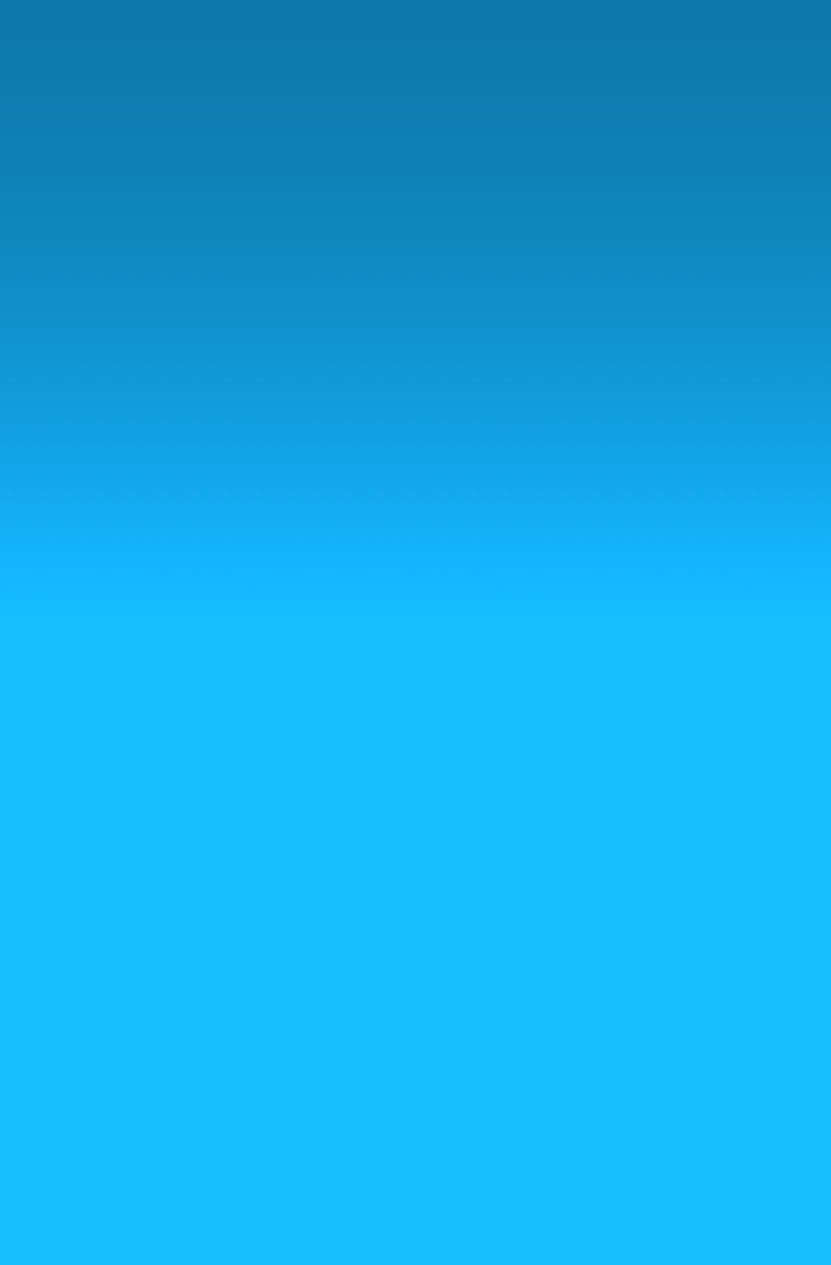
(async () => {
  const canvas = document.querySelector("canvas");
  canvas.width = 831;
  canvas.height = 1265;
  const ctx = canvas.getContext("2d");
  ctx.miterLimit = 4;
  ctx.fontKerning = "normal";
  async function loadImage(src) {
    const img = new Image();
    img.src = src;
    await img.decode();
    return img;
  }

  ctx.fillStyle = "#ffffff";
  ctx.fillRect(0, 0, 831, 1265);
  ctx.drawImage(await loadImage("img/1.png"), 0, 0, 831, 1265);
})();
